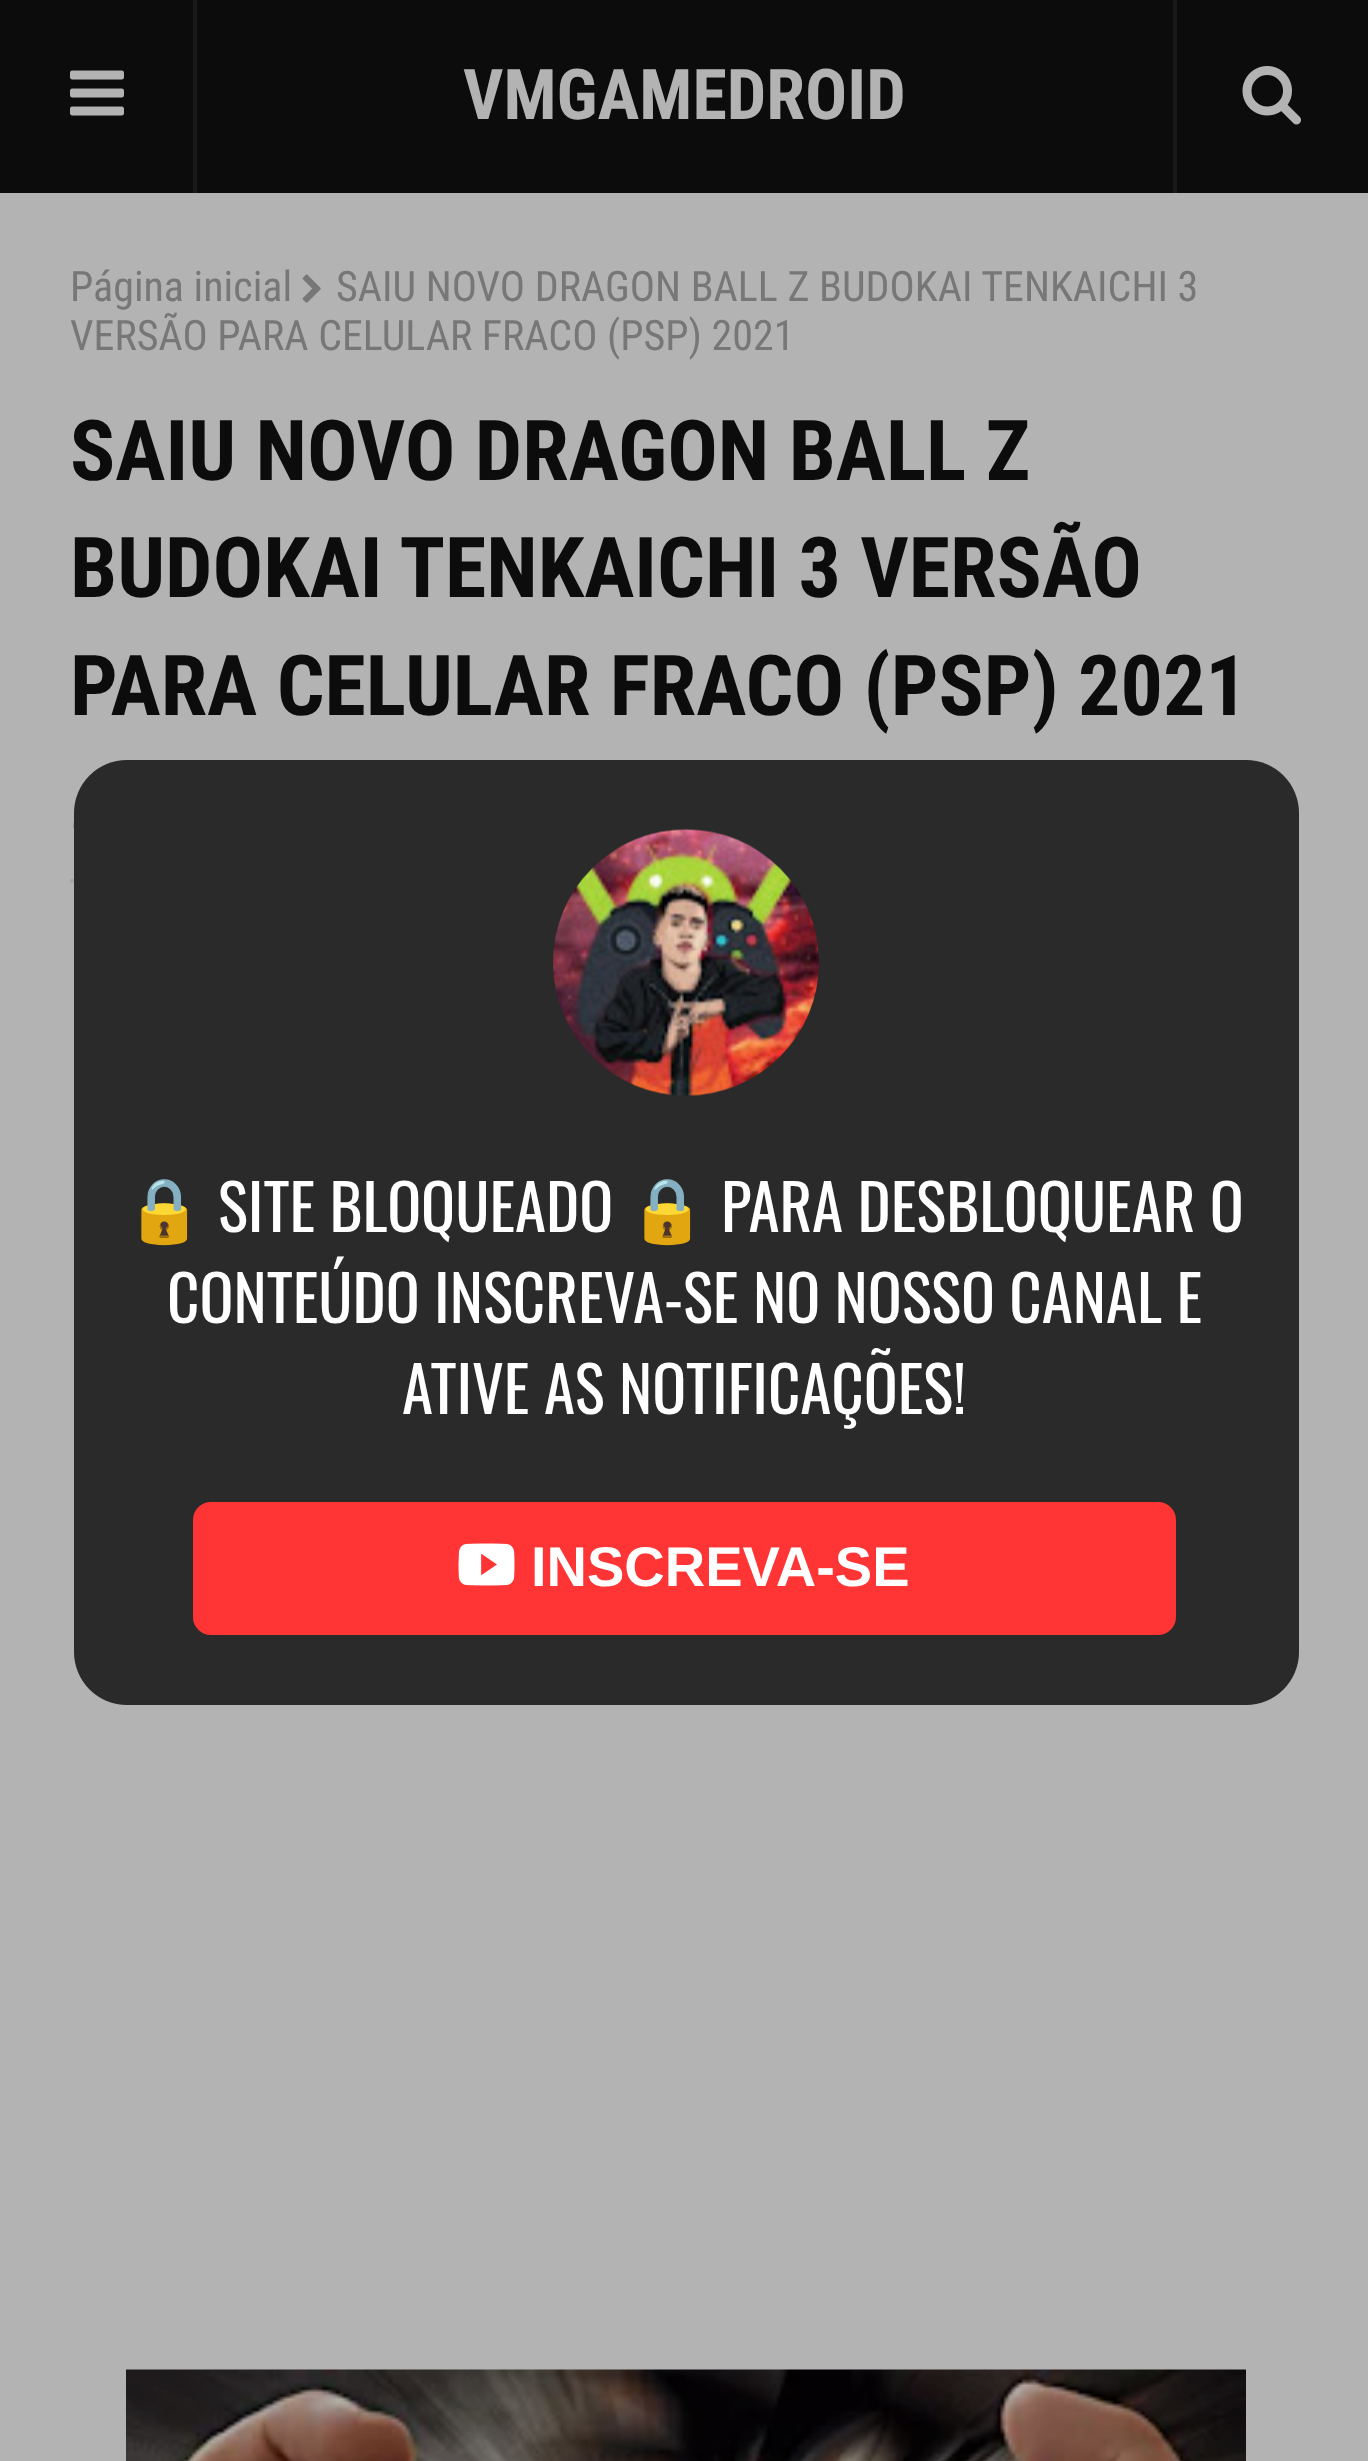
(async () => {
  const canvas = document.querySelector("canvas");
  canvas.width = 1368;
  canvas.height = 2461;
  const ctx = canvas.getContext("2d");
  ctx.miterLimit = 4;
  ctx.fontKerning = "normal";
  async function loadImage(src) {
    const img = new Image();
    img.src = src;
    await img.decode();
    return img;
  }

  ctx.fillStyle = "#b3b3b3";
  ctx.fillRect(0, 0, 1368, 2461);
  ctx.fillStyle = "#0c0c0c";
  ctx.fillRect(0, 0, 1368, 193);
  ctx.fillStyle = "#191919";
  ctx.fillRect(193, 0, 4, 193);
  ctx.drawImage(await loadImage("img/1.png"), 70, 70, 54, 46);
  ctx.fillRect(1173, 0, 4, 193);
  ctx.drawImage(await loadImage("img/2.png"), 1242, 66, 59, 59);
  ctx.drawImage(await loadImage("img/3.png"), 302, 274, 19, 29);
  ctx.fillStyle = "#a5a5a5";
  ctx.fillRect(70, 879, 4, 4);
  ctx.drawImage(await loadImage("img/4.png"), 73, 822, 1, 7);
  ctx.drawImage(await loadImage("img/5.png"), 126, 2369, 1120, 92);
  ctx.fillStyle = "#2a2a2a";
  ctx.beginPath();
  ctx.roundRect(74, 760, 1225, 945, 53);
  ctx.fill();
  ctx.drawImage(await loadImage("img/6.png"), 553, 829, 266, 267);
  ctx.fillStyle = "#ff3535";
  ctx.beginPath();
  ctx.roundRect(193, 1502, 983, 133, 18);
  ctx.fill();
  ctx.drawImage(await loadImage("img/7.png"), 458, 1543, 57, 43);
  ctx.font = "bold 70px Roboto Condensed";
  ctx.fillStyle = "#b3b3b3";
  ctx.fillText("VMGAMEDROID", 463, 119);
  ctx.font = "42px Roboto Condensed";
  ctx.fillStyle = "#777777";
  for (const [text, x, y] of [
    ["Página inicial", 70, 301],
    ["SAIU NOVO DRAGON BALL Z BUDOKAI TENKAICHI 3", 336, 301],
    ["VERSÃO PARA CELULAR FRACO (PSP) 2021", 70, 350],
  ]) {
    ctx.fillText(text, x, y);
  }
  ctx.font = "bold 84px Roboto Condensed";
  ctx.fillStyle = "#0c0c0c";
  for (const [text, x, y] of [
    ["SAIU NOVO DRAGON BALL Z", 70, 480],
    ["BUDOKAI TENKAICHI 3 VERSÃO", 70, 597],
    ["PARA CELULAR FRACO (PSP) 2021", 70, 715],
  ]) {
    ctx.fillText(text, x, y);
  }
  ctx.font = "63px Noto Color Emoji";
  ctx.fillStyle = "#ffffff";
  ctx.fillText("🔒", 125, 1232);
  ctx.font = "63px Oswald";
  ctx.fillText("SITE BLOQUEADO", 218, 1232);
  ctx.font = "63px Noto Color Emoji";
  ctx.fillText("🔒", 628, 1232);
  ctx.font = "63px Oswald";
  for (const [text, x, y] of [
    ["PARA DESBLOQUEAR O", 721, 1232],
    ["CONTEÚDO INSCREVA-SE NO NOSSO CANAL E", 167, 1323],
    ["ATIVE AS NOTIFICAÇÕES!", 402, 1414],
  ]) {
    ctx.fillText(text, x, y);
  }
  ctx.font = "bold 56px Liberation Sans";
  ctx.fillText("INSCREVA-SE", 531, 1586);
})();
